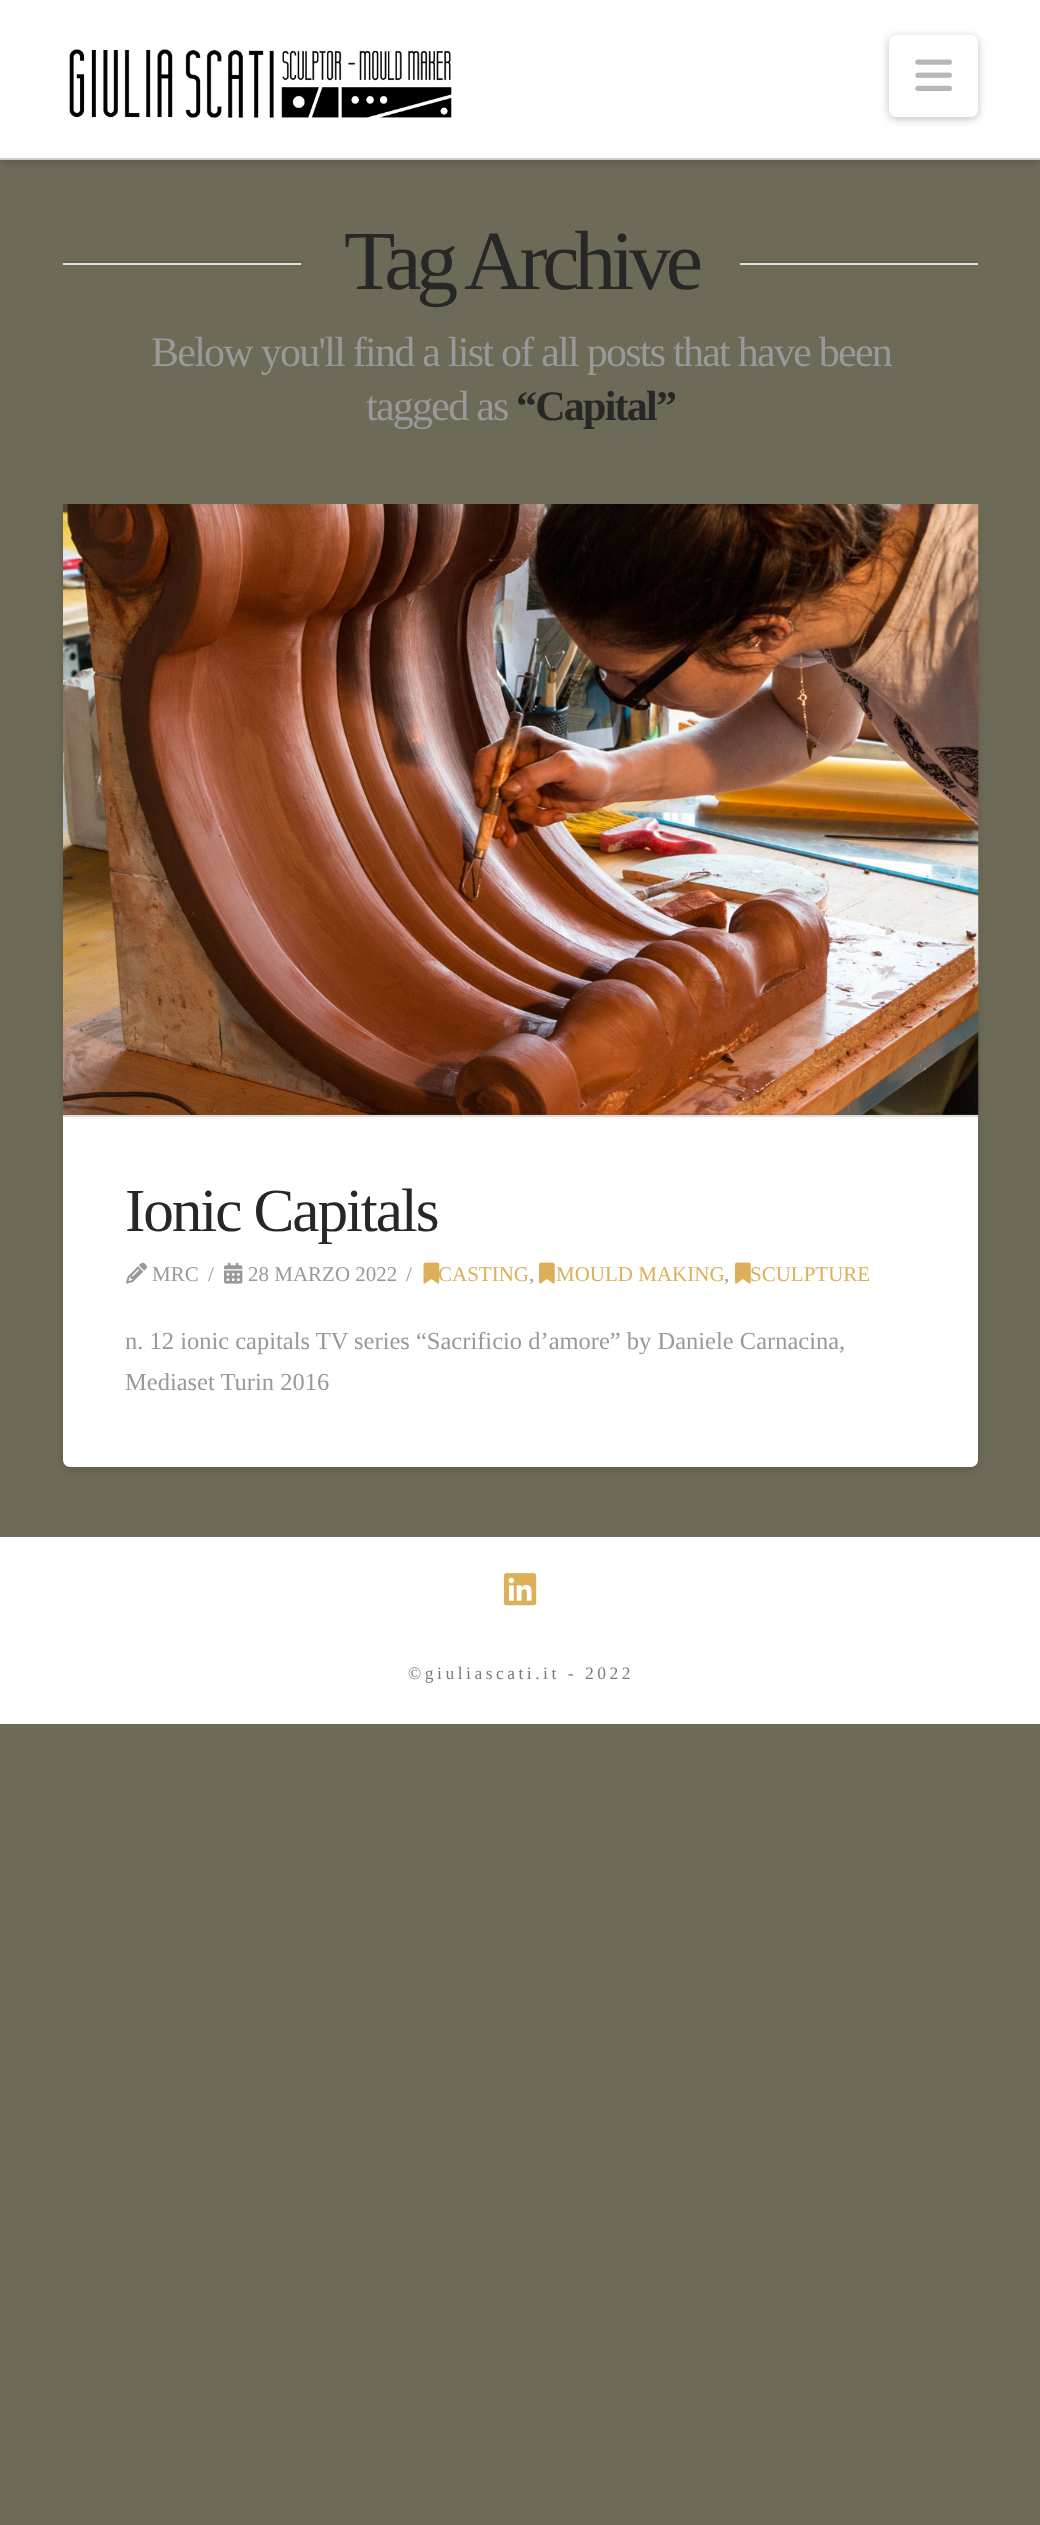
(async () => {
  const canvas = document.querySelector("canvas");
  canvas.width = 1040;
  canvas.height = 2525;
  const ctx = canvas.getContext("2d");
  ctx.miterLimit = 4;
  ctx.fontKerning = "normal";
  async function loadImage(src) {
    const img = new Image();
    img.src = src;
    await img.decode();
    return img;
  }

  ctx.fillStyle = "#6d6a57";
  ctx.fillRect(0, 0, 1040, 2525);
  ctx.fillStyle = "rgba(0, 0, 0, 0.13)";
  ctx.filter = "blur(4.5px)";
  ctx.beginPath();
  ctx.rect(0, 4, 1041, 159);
  ctx.fill();
  ctx.filter = "none";
  ctx.fillStyle = "#ffffff";
  ctx.fillRect(0, 0, 1040, 158);
  ctx.fillStyle = "#cccccc";
  ctx.fillRect(0, 158, 1040, 2);
  ctx.drawImage(await loadImage("img/1.png"), 69, 49, 383, 69);
  ctx.fillStyle = "rgba(0, 0, 0, 0.25)";
  ctx.filter = "blur(4.5px)";
  ctx.beginPath();
  ctx.roundRect(889, 37, 89, 82, 7);
  ctx.fill();
  ctx.filter = "none";
  ctx.fillStyle = "#ffffff";
  ctx.beginPath();
  ctx.roundRect(889, 35, 89, 82, 7);
  ctx.fill();
  ctx.drawImage(await loadImage("img/2.png"), 915, 59, 37, 32);
  for (const [x, y, w, h, color] of [
    [63, 263, 238, 2, "#e1e1dd"],
    [63, 261, 238, 2, "#625f4e"],
    [740, 263, 238, 2, "#e1e1dd"],
    [740, 261, 238, 2, "#625f4e"],
  ]) {
    ctx.fillStyle = color;
    ctx.fillRect(x, y, w, h);
  }
  ctx.fillStyle = "rgba(0, 0, 0, 0.13)";
  ctx.filter = "blur(4.5px)";
  ctx.beginPath();
  ctx.roundRect(63, 1120, 915, 350, 7);
  ctx.fill();
  ctx.filter = "none";
  ctx.fillStyle = "#ffffff";
  ctx.beginPath();
  ctx.roundRect(63, 1117, 915, 350, [0, 0, 7, 7]);
  ctx.fill();
  ctx.fillStyle = "rgba(0, 0, 0, 0.13)";
  ctx.filter = "blur(3.5px)";
  ctx.beginPath();
  ctx.rect(63, 515, 901, 598);
  ctx.fill();
  ctx.filter = "none";
  ctx.filter = "blur(3.5px)";
  ctx.beginPath();
  ctx.rect(77, 515, 901, 598);
  ctx.fill();
  ctx.filter = "none";
  ctx.fillStyle = "#dddddd";
  ctx.fillRect(63, 1115, 915, 2);
  ctx.drawImage(await loadImage("img/3.png"), 63, 504, 916, 611);
  ctx.drawImage(await loadImage("img/4.png"), 126, 1262, 21, 22);
  ctx.drawImage(await loadImage("img/5.png"), 224, 1262, 19, 22);
  ctx.drawImage(await loadImage("img/6.png"), 423, 1262, 17, 22);
  ctx.drawImage(await loadImage("img/7.png"), 539, 1262, 16, 22);
  ctx.drawImage(await loadImage("img/7.png"), 735, 1262, 16, 22);
  ctx.fillStyle = "#ffffff";
  ctx.fillRect(0, 1537, 1040, 187);
  ctx.drawImage(await loadImage("img/8.png"), 504, 1573, 33, 33);
  ctx.letterSpacing = "-5.25px";
  ctx.font = "84px Liberation Serif";
  ctx.fillStyle = "#272727";
  ctx.fillText("Tag Archive", 344, 289);
  ctx.letterSpacing = "-1.75px";
  ctx.font = "42px Liberation Serif";
  ctx.fillStyle = "#999999";
  ctx.fillText("Below you'll find a list of all posts that have been", 151, 366);
  ctx.fillText("tagged as", 366, 420);
  ctx.font = "bold 42px Liberation Serif";
  ctx.fillStyle = "#272727";
  ctx.fillText("“Capital”", 516, 420);
  ctx.letterSpacing = "-2.1px";
  ctx.font = "61.25px Liberation Serif";
  ctx.fillText("Ionic Capitals", 125, 1231);
  ctx.letterSpacing = "0px";
  ctx.font = "21px Liberation Serif";
  ctx.fillStyle = "#999999";
  for (const [text, x, y] of [
    ["MRC", 152, 1281],
    ["/", 208, 1281],
    ["28 MARZO 2022", 248, 1281],
    ["/", 406, 1281],
  ]) {
    ctx.fillText(text, x, y);
  }
  ctx.fillStyle = "#dcaf58";
  ctx.fillText("CASTING", 438, 1281);
  ctx.fillStyle = "#999999";
  ctx.fillText(",", 529, 1281);
  ctx.fillStyle = "#dcaf58";
  ctx.fillText("MOULD MAKING", 556, 1281);
  ctx.fillStyle = "#999999";
  ctx.fillText(",", 724, 1281);
  ctx.fillStyle = "#dcaf58";
  ctx.fillText("SCULPTURE", 750, 1281);
  ctx.font = "24.5px Liberation Serif";
  ctx.fillStyle = "#999999";
  ctx.fillText("n. 12 ionic capitals TV series “Sacrificio d’amore” by Daniele Carnacina,", 125, 1349);
  ctx.fillText("Mediaset Turin 2016", 125, 1390);
  ctx.letterSpacing = "3.5px";
  ctx.font = "17.5px Liberation Serif";
  ctx.fillStyle = "#7a7a7a";
  ctx.fillText("©giuliascati.it - 2022", 408, 1679);
})();
